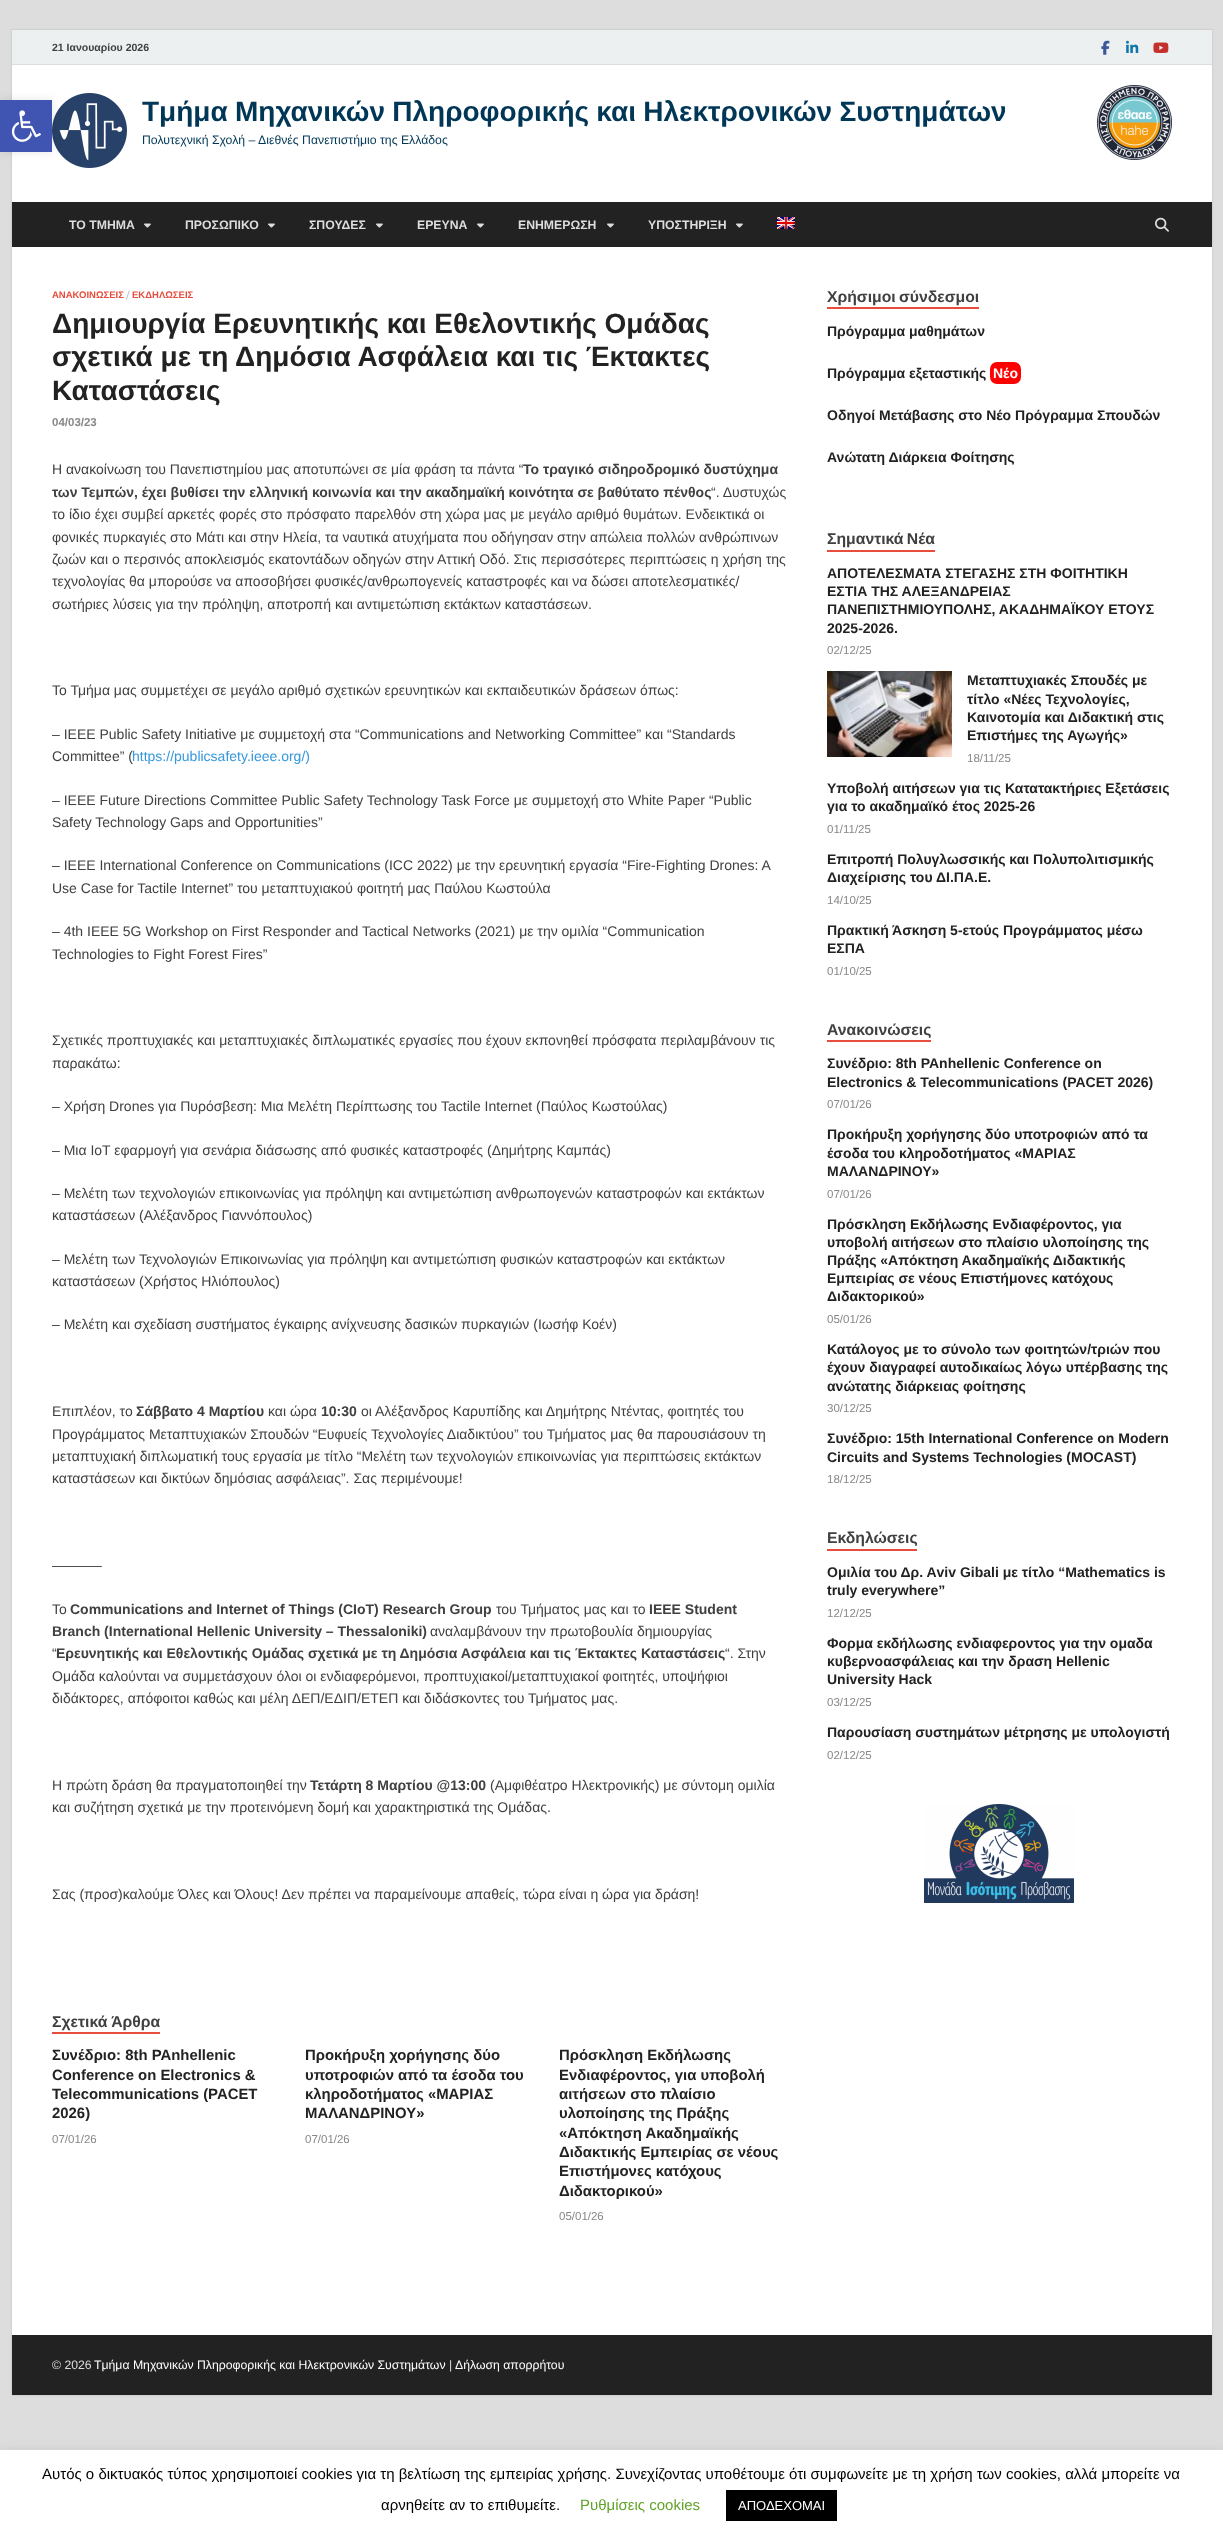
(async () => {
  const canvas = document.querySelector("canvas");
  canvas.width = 1223;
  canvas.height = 2538;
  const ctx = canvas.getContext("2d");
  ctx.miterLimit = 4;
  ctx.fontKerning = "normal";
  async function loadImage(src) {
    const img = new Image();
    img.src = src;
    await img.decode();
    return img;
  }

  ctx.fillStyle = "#dddddd";
  ctx.fillRect(0, 0, 1223, 2538);
  ctx.fillStyle = "#bbbbbb";
  ctx.filter = "blur(1px)";
  ctx.beginPath();
  ctx.rect(12, 30, 1200, 2365);
  ctx.fill();
  ctx.filter = "none";
  ctx.fillStyle = "#ffffff";
  ctx.fillRect(12, 65, 1200, 2270);
  ctx.drawImage(await loadImage("img/5.png"), 52, 93, 75, 75);
  ctx.fillStyle = "rgba(0, 0, 0, 0.1)";
  ctx.filter = "blur(5px)";
  ctx.beginPath();
  ctx.rect(0, 100, 52, 52);
  ctx.fill();
  ctx.filter = "none";
  ctx.fillStyle = "#4054b2";
  ctx.fillRect(0, 100, 52, 52);
  ctx.drawImage(await loadImage("img/1.png"), 11, 110, 30, 32);
  ctx.fillStyle = "#ecf0f1";
  ctx.fillRect(12, 30, 1200, 34);
  ctx.fillStyle = "#dddddd";
  ctx.fillRect(12, 64, 1200, 1);
  ctx.drawImage(await loadImage("img/2.png"), 1101, 40, 9, 15);
  ctx.drawImage(await loadImage("img/3.png"), 1126, 40, 13, 13);
  ctx.drawImage(await loadImage("img/4.png"), 1153, 42, 16, 11);
  ctx.drawImage(await loadImage("img/6.png"), 1097, 85, 75, 75);
  ctx.fillStyle = "#222222";
  ctx.fillRect(12, 202, 1200, 45);
  ctx.drawImage(await loadImage("img/7.png"), 144, 223, 7, 5);
  ctx.drawImage(await loadImage("img/7.png"), 268, 223, 7, 5);
  ctx.drawImage(await loadImage("img/7.png"), 376, 223, 7, 5);
  ctx.drawImage(await loadImage("img/7.png"), 477, 223, 7, 5);
  ctx.drawImage(await loadImage("img/7.png"), 607, 223, 7, 5);
  ctx.drawImage(await loadImage("img/7.png"), 736, 223, 7, 5);
  ctx.drawImage(await loadImage("img/8.png"), 777, 217, 18, 12);
  ctx.drawImage(await loadImage("img/9.png"), 1155, 217, 14, 15);
  ctx.fillStyle = "#e74c3c";
  ctx.fillRect(52, 2032, 108, 2);
  ctx.fillRect(827, 307, 152, 2);
  ctx.fillStyle = "#ff0000";
  ctx.beginPath();
  ctx.roundRect(990, 362, 31, 22, 7);
  ctx.fill();
  ctx.fillStyle = "#e74c3c";
  ctx.fillRect(827, 550, 108, 2);
  ctx.drawImage(await loadImage("img/10.png"), 827, 671, 125, 86);
  ctx.fillRect(827, 1040, 104, 2);
  ctx.fillRect(827, 1549, 90, 2);
  ctx.drawImage(await loadImage("img/11.png"), 924, 1804, 150, 99);
  ctx.fillStyle = "#222222";
  ctx.fillRect(12, 2335, 1200, 60);
  ctx.fillStyle = "rgba(172, 171, 171, 0.3)";
  ctx.filter = "blur(5px)";
  ctx.beginPath();
  ctx.rect(0, 2449, 1223, 88);
  ctx.fill();
  ctx.filter = "none";
  ctx.fillStyle = "#ffffff";
  ctx.fillRect(0, 2450, 1223, 88);
  ctx.fillStyle = "#000000";
  ctx.fillRect(726, 2490, 111, 31);
  ctx.font = "bold 10.5px Liberation Sans";
  ctx.fillStyle = "#404040";
  ctx.fillText("21 Ιανουαρίου 2026", 52, 51);
  ctx.save();
  ctx.beginPath();
  ctx.rect(142, 93, 863, 57);
  ctx.clip();
  ctx.wordSpacing = "-0.5px";
  ctx.font = "bold 28px Liberation Sans";
  ctx.fillStyle = "#003656";
  ctx.fillText("Tμήμα Μηχανικών Πληροφορικής και Ηλεκτρονικών Συστημάτων", 142, 121);
  ctx.restore();
  ctx.font = "12.25px Liberation Sans";
  ctx.fillStyle = "#003656";
  ctx.fillText("Πολυτεχνική Σχολή – Διεθνές Πανεπιστήμιο της Ελλάδος", 142, 144);
  ctx.font = "bold 12.25px Liberation Sans";
  ctx.fillStyle = "#dddddd";
  for (const [text, x, y] of [
    ["ΤΟ ΤΜΗΜΑ", 69, 229],
    ["ΠΡΟΣΩΠΙΚΟ", 185, 229],
    ["ΣΠΟΥΔΕΣ", 309, 229],
    ["ΕΡΕΥΝΑ", 417, 229],
    ["ΕΝΗΜΕΡΩΣΗ", 518, 229],
    ["ΥΠΟΣΤΗΡΙΞΗ", 648, 229],
  ]) {
    ctx.fillText(text, x, y);
  }
  ctx.font = "bold 9.5px Liberation Sans";
  ctx.fillStyle = "#e74c3c";
  ctx.fillText("ΑΝΑΚΟΙΝΩΣΕΙΣ", 52, 298);
  ctx.font = "9.5px Ubuntu";
  ctx.fillStyle = "#bbbbbb";
  ctx.fillText("/", 126, 298);
  ctx.font = "bold 9.5px Liberation Sans";
  ctx.fillStyle = "#e74c3c";
  ctx.fillText("ΕΚΔΗΛΩΣΕΙΣ", 132, 298);
  ctx.font = "bold 28px Liberation Sans";
  ctx.fillStyle = "#222222";
  for (const [text, x, y] of [
    ["Δημιουργία Ερευνητικής και Εθελοντικής Ομάδας", 52, 333],
    ["σχετικά με τη Δημόσια Ασφάλεια και τις Έκτακτες", 52, 366],
    ["Καταστάσεις", 52, 400],
  ]) {
    ctx.fillText(text, x, y);
  }
  ctx.font = "bold 11.5px Liberation Sans";
  ctx.fillStyle = "#888888";
  ctx.fillText("04/03/23", 52, 426);
  ctx.font = "14px Liberation Sans";
  ctx.fillStyle = "#404040";
  ctx.fillText("Η ανακοίνωση του Πανεπιστημίου μας αποτυπώνει σε μία φράση τα πάντα “", 52, 474);
  ctx.font = "bold 14px Liberation Sans";
  ctx.fillText("Το τραγικό σιδηροδρομικό δυστύχημα", 523, 474);
  ctx.fillText("των Τεμπών, έχει βυθίσει την ελληνική κοινωνία και την ακαδημαϊκή κοινότητα σε βαθύτατο πένθος", 52, 497);
  ctx.font = "14px Liberation Sans";
  for (const [text, x, y] of [
    ["“. Δυστυχώς", 711, 497],
    ["το ίδιο έχει συμβεί αρκετές φορές στο πρόσφατο παρελθόν στη χώρα μας με μεγάλο αριθμό θυμάτων. Ενδεικτικά οι", 52, 519],
    ["φονικές πυρκαγιές στο Μάτι και στην Ηλεία, τα ναυτικά ατυχήματα που οδήγησαν στην απώλεια πολλών ανθρώπινων", 52, 542],
    ["ζωών και ο περσινός αποκλεισμός εκατοντάδων οδηγών στην Αττική Οδό. Στις περισσότερες περιπτώσεις η χρήση της", 52, 564],
    ["τεχνολογίας θα μπορούσε να αποσοβήσει φυσικές/ανθρωπογενείς καταστροφές και να δώσει αποτελεσματικές/", 52, 586],
    ["σωτήριες λύσεις για την πρόληψη, αποτροπή και αντιμετώπιση εκτάκτων καταστάσεων.", 52, 609],
    ["Το Τμήμα μας συμμετέχει σε μεγάλο αριθμό σχετικών ερευνητικών και εκπαιδευτικών δράσεων όπως:", 52, 695],
    ["– IEEE Public Safety Initiative με συμμετοχή στα “Communications and Networking Committee” και “Standards", 52, 739],
    ["Committee” (", 52, 761],
  ]) {
    ctx.fillText(text, x, y);
  }
  ctx.fillStyle = "#3498db";
  ctx.fillText("https://publicsafety.ieee.org/)", 132, 761);
  ctx.fillStyle = "#404040";
  for (const [text, x, y] of [
    ["– IEEE Future Directions Committee Public Safety Technology Task Force με συμμετοχή στο White Paper “Public", 52, 805],
    ["Safety Technology Gaps and Opportunities”", 52, 827],
    ["– IEEE International Conference on Communications (ICC 2022) με την ερευνητική εργασία “Fire-Fighting Drones: A", 52, 870],
    ["Use Case for Tactile Internet” του μεταπτυχιακού φοιτητή μας Παύλου Κωστούλα", 52, 893],
    ["– 4th IEEE 5G Workshop on First Responder and Tactical Networks (2021) με την ομιλία “Communication", 52, 936],
    ["Technologies to Fight Forest Fires”", 52, 959],
    ["Σχετικές προπτυχιακές και μεταπτυχιακές διπλωματικές εργασίες που έχουν εκπονηθεί πρόσφατα περιλαμβάνουν τις", 52, 1045],
    ["παρακάτω:", 52, 1068],
    ["– Χρήση Drones για Πυρόσβεση: Μια Μελέτη Περίπτωσης του Tactile Internet (Παύλος Κωστούλας)", 52, 1111],
    ["– Μια ΙοΤ εφαρμογή για σενάρια διάσωσης από φυσικές καταστροφές (Δημήτρης Καμπάς)", 52, 1155],
    ["– Μελέτη των τεχνολογιών επικοινωνίας για πρόληψη και αντιμετώπιση ανθρωπογενών καταστροφών και εκτάκτων", 52, 1198],
    ["καταστάσεων (Αλέξανδρος Γιαννόπουλος)", 52, 1220],
    ["– Μελέτη των Τεχνολογιών Επικοινωνίας για πρόληψη και αντιμετώπιση φυσικών καταστροφών και εκτάκτων", 52, 1264],
    ["καταστάσεων (Χρήστος Ηλιόπουλος)", 52, 1286],
    ["– Μελέτη και σχεδίαση συστήματος έγκαιρης ανίχνευσης δασικών πυρκαγιών (Ιωσήφ Κοέν)", 52, 1329],
    ["Επιπλέον, το", 52, 1416],
  ]) {
    ctx.fillText(text, x, y);
  }
  ctx.font = "bold 14px Liberation Sans";
  ctx.fillText("Σάββατο 4 Μαρτίου", 136, 1416);
  ctx.font = "14px Liberation Sans";
  ctx.fillText("και ώρα", 268, 1416);
  ctx.font = "bold 14px Liberation Sans";
  ctx.fillText("10:30", 321, 1416);
  ctx.font = "14px Liberation Sans";
  for (const [text, x, y] of [
    ["οι Αλέξανδρος Καρυπίδης και Δημήτρης Ντέντας, φοιτητές του", 361, 1416],
    ["Προγράμματος Μεταπτυχιακών Σπουδών “Ευφυείς Τεχνολογίες Διαδικτύου” του Τμήματος μας θα παρουσιάσουν τη", 52, 1439],
    ["μεταπτυχιακή διπλωματική τους εργασία με τίτλο “Μελέτη των τεχνολογιών επικοινωνίας για περιπτώσεις εκτάκτων", 52, 1461],
    ["καταστάσεων και δικτύων δημόσιας ασφάλειας”. Σας περιμένουμε!", 52, 1483],
    ["———–", 52, 1570],
    ["Το", 52, 1614],
  ]) {
    ctx.fillText(text, x, y);
  }
  ctx.font = "bold 14px Liberation Sans";
  ctx.fillText("Communications and Internet of Things (CIoT) Research Group", 70, 1614);
  ctx.font = "14px Liberation Sans";
  ctx.fillText("του Τμήματος μας και το", 496, 1614);
  ctx.font = "bold 14px Liberation Sans";
  ctx.fillText("IEEE Student", 649, 1614);
  ctx.fillText("Branch (International Hellenic University – Thessaloniki)", 52, 1636);
  ctx.font = "14px Liberation Sans";
  ctx.fillText("αναλαμβάνουν την πρωτοβουλία δημιουργίας", 430, 1636);
  ctx.fillText("“", 52, 1658);
  ctx.font = "bold 14px Liberation Sans";
  ctx.fillText("Ερευνητικής και Εθελοντικής Ομάδας σχετικά με τη Δημόσια Ασφάλεια και τις Έκτακτες Καταστάσεις", 56, 1658);
  ctx.font = "14px Liberation Sans";
  for (const [text, x, y] of [
    ["“. Στην", 725, 1658],
    ["Ομάδα καλούνται να συμμετάσχουν όλοι οι ενδιαφερόμενοι, προπτυχιακοί/μεταπτυχιακοί φοιτητές, υποψήφιοι", 52, 1681],
    ["διδάκτορες, απόφοιτοι καθώς και μέλη ΔΕΠ/ΕΔΙΠ/ΕΤΕΠ και διδάσκοντες του Τμήματος μας.", 52, 1703],
    ["Η πρώτη δράση θα πραγματοποιηθεί την", 52, 1790],
  ]) {
    ctx.fillText(text, x, y);
  }
  ctx.font = "bold 14px Liberation Sans";
  ctx.fillText("Τετάρτη 8 Μαρτίου @13:00", 310, 1790);
  ctx.font = "14px Liberation Sans";
  for (const [text, x, y] of [
    ["(Αμφιθέατρο Ηλεκτρονικής) με σύντομη ομιλία", 490, 1790],
    ["και συζήτηση σχετικά με την προτεινόμενη δομή και χαρακτηριστικά της Ομάδας.", 52, 1812],
    ["Σας (προσ)καλούμε Όλες και Όλους! Δεν πρέπει να παραμείνουμε απαθείς, τώρα είναι η ώρα για δράση!", 52, 1899],
  ]) {
    ctx.fillText(text, x, y);
  }
  ctx.font = "bold 15.75px Liberation Sans";
  ctx.fillText("Σχετικά Άρθρα", 52, 2027);
  ctx.font = "bold 14.9px Liberation Sans";
  ctx.fillStyle = "#222222";
  ctx.fillText("Συνέδριο: 8th PAnhellenic", 52, 2060);
  ctx.fillText("Conference on Electronics &", 52, 2080);
  ctx.save();
  ctx.beginPath();
  ctx.rect(52, 2012, 735, 242);
  ctx.clip();
  ctx.fillText("Telecommunications (PACET", 52, 2099);
  ctx.restore();
  ctx.fillText("2026)", 52, 2118);
  ctx.font = "11.5px Liberation Sans";
  ctx.fillStyle = "#888888";
  ctx.fillText("07/01/26", 52, 2143);
  ctx.font = "bold 14.9px Liberation Sans";
  ctx.fillStyle = "#222222";
  for (const [text, x, y] of [
    ["Προκήρυξη χορήγησης δύο", 305, 2060],
    ["υποτροφιών από τα έσοδα του", 305, 2080],
    ["κληροδοτήματος «ΜΑΡΙΑΣ", 305, 2099],
    ["ΜΑΛΑΝΔΡΙΝΟΥ»", 305, 2118],
  ]) {
    ctx.fillText(text, x, y);
  }
  ctx.font = "11.5px Liberation Sans";
  ctx.fillStyle = "#888888";
  ctx.fillText("07/01/26", 305, 2143);
  ctx.font = "bold 14.9px Liberation Sans";
  ctx.fillStyle = "#222222";
  for (const [text, x, y] of [
    ["Πρόσκληση Εκδήλωσης", 559, 2060],
    ["Ενδιαφέροντος, για υποβολή", 559, 2080],
    ["αιτήσεων στο πλαίσιο", 559, 2099],
    ["υλοποίησης της Πράξης", 559, 2118],
    ["«Απόκτηση Ακαδημαϊκής", 559, 2138],
    ["Διδακτικής Εμπειρίας σε νέους", 559, 2157],
    ["Επιστήμονες κατόχους", 559, 2176],
    ["Διδακτορικού»", 559, 2196],
  ]) {
    ctx.fillText(text, x, y);
  }
  ctx.font = "11.5px Liberation Sans";
  ctx.fillStyle = "#888888";
  ctx.fillText("05/01/26", 559, 2220);
  ctx.wordSpacing = "-1px";
  ctx.font = "bold 15.75px Liberation Sans";
  ctx.fillStyle = "#404040";
  ctx.fillText("Χρήσιμοι σύνδεσμοι", 827, 302);
  ctx.wordSpacing = "0px";
  ctx.font = "bold 14px Liberation Sans";
  ctx.fillStyle = "#222222";
  ctx.fillText("Πρόγραμμα μαθημάτων", 827, 336);
  ctx.fillText("Πρόγραμμα εξεταστικής", 827, 378);
  ctx.fillStyle = "#ffffff";
  ctx.fillText("Νέο", 993, 378);
  ctx.fillStyle = "#222222";
  ctx.fillText("Οδηγοί Mετάβασης στο Νέο Πρόγραμμα Σπουδών", 827, 420);
  ctx.fillText("Ανώτατη Διάρκεια Φοίτησης", 827, 462);
  ctx.wordSpacing = "-1px";
  ctx.font = "bold 15.75px Liberation Sans";
  ctx.fillStyle = "#404040";
  ctx.fillText("Σημαντικά Νέα", 827, 544);
  ctx.wordSpacing = "0px";
  ctx.font = "bold 14px Liberation Sans";
  ctx.fillStyle = "#222222";
  for (const [text, x, y] of [
    ["ΑΠΟΤΕΛΕΣΜΑΤΑ ΣΤΕΓΑΣΗΣ ΣΤΗ ΦΟΙΤΗΤΙΚΗ", 827, 578],
    ["ΕΣΤΙΑ ΤΗΣ ΑΛΕΞΑΝΔΡΕΙΑΣ", 827, 596],
    ["ΠΑΝΕΠΙΣΤΗΜΙΟΥΠΟΛΗΣ, ΑΚΑΔΗΜΑΪΚΟΥ ΕΤΟΥΣ", 827, 614],
    ["2025-2026.", 827, 633],
  ]) {
    ctx.fillText(text, x, y);
  }
  ctx.font = "11.5px Liberation Sans";
  ctx.fillStyle = "#888888";
  ctx.fillText("02/12/25", 827, 654);
  ctx.font = "bold 14px Liberation Sans";
  ctx.fillStyle = "#222222";
  for (const [text, x, y] of [
    ["Μεταπτυχιακές Σπουδές με", 967, 685],
    ["τίτλο «Νέες Τεχνολογίες,", 967, 704],
    ["Καινοτομία και Διδακτική στις", 967, 722],
    ["Επιστήμες της Αγωγής»", 967, 740],
  ]) {
    ctx.fillText(text, x, y);
  }
  ctx.font = "11.5px Liberation Sans";
  ctx.fillStyle = "#888888";
  ctx.fillText("18/11/25", 967, 762);
  ctx.font = "bold 14px Liberation Sans";
  ctx.fillStyle = "#222222";
  ctx.fillText("Υποβολή αιτήσεων για τις Κατατακτήριες Εξετάσεις", 827, 793);
  ctx.fillText("για το ακαδημαϊκό έτος 2025-26", 827, 811);
  ctx.font = "11.5px Liberation Sans";
  ctx.fillStyle = "#888888";
  ctx.fillText("01/11/25", 827, 833);
  ctx.font = "bold 14px Liberation Sans";
  ctx.fillStyle = "#222222";
  ctx.fillText("Επιτροπή Πολυγλωσσικής και Πολυπολιτισμικής", 827, 864);
  ctx.fillText("Διαχείρισης του ΔΙ.ΠΑ.Ε.", 827, 882);
  ctx.font = "11.5px Liberation Sans";
  ctx.fillStyle = "#888888";
  ctx.fillText("14/10/25", 827, 904);
  ctx.font = "bold 14px Liberation Sans";
  ctx.fillStyle = "#222222";
  ctx.fillText("Πρακτική Άσκηση 5-ετούς Προγράμματος μέσω", 827, 935);
  ctx.fillText("ΕΣΠΑ", 827, 953);
  ctx.font = "11.5px Liberation Sans";
  ctx.fillStyle = "#888888";
  ctx.fillText("01/10/25", 827, 975);
  ctx.font = "bold 15.75px Liberation Sans";
  ctx.fillStyle = "#404040";
  ctx.fillText("Ανακοινώσεις", 827, 1035);
  ctx.font = "bold 14px Liberation Sans";
  ctx.fillStyle = "#222222";
  ctx.fillText("Συνέδριο: 8th PAnhellenic Conference on", 827, 1068);
  ctx.fillText("Electronics & Telecommunications (PACET 2026)", 827, 1087);
  ctx.font = "11.5px Liberation Sans";
  ctx.fillStyle = "#888888";
  ctx.fillText("07/01/26", 827, 1108);
  ctx.font = "bold 14px Liberation Sans";
  ctx.fillStyle = "#222222";
  for (const [text, x, y] of [
    ["Προκήρυξη χορήγησης δύο υποτροφιών από τα", 827, 1139],
    ["έσοδα του κληροδοτήματος «ΜΑΡΙΑΣ", 827, 1158],
    ["ΜΑΛΑΝΔΡΙΝΟΥ»", 827, 1176],
  ]) {
    ctx.fillText(text, x, y);
  }
  ctx.font = "11.5px Liberation Sans";
  ctx.fillStyle = "#888888";
  ctx.fillText("07/01/26", 827, 1198);
  ctx.font = "bold 14px Liberation Sans";
  ctx.fillStyle = "#222222";
  for (const [text, x, y] of [
    ["Πρόσκληση Εκδήλωσης Ενδιαφέροντος, για", 827, 1229],
    ["υποβολή αιτήσεων στο πλαίσιο υλοποίησης της", 827, 1247],
    ["Πράξης «Απόκτηση Ακαδημαϊκής Διδακτικής", 827, 1265],
    ["Εμπειρίας σε νέους Επιστήμονες κατόχους", 827, 1283],
    ["Διδακτορικού»", 827, 1301],
  ]) {
    ctx.fillText(text, x, y);
  }
  ctx.font = "11.5px Liberation Sans";
  ctx.fillStyle = "#888888";
  ctx.fillText("05/01/26", 827, 1323);
  ctx.font = "bold 14px Liberation Sans";
  ctx.fillStyle = "#222222";
  for (const [text, x, y] of [
    ["Κατάλογος με το σύνολο των φοιτητών/τριών που", 827, 1354],
    ["έχουν διαγραφεί αυτοδικαίως λόγω υπέρβασης της", 827, 1372],
    ["ανώτατης διάρκειας φοίτησης", 827, 1391],
  ]) {
    ctx.fillText(text, x, y);
  }
  ctx.font = "11.5px Liberation Sans";
  ctx.fillStyle = "#888888";
  ctx.fillText("30/12/25", 827, 1412);
  ctx.font = "bold 14px Liberation Sans";
  ctx.fillStyle = "#222222";
  ctx.fillText("Συνέδριο: 15th International Conference on Modern", 827, 1443);
  ctx.fillText("Circuits and Systems Technologies (MOCAST)", 827, 1462);
  ctx.font = "11.5px Liberation Sans";
  ctx.fillStyle = "#888888";
  ctx.fillText("18/12/25", 827, 1483);
  ctx.font = "bold 15.75px Liberation Sans";
  ctx.fillStyle = "#404040";
  ctx.fillText("Εκδηλώσεις", 827, 1543);
  ctx.font = "bold 14px Liberation Sans";
  ctx.fillStyle = "#222222";
  ctx.fillText("Ομιλία του Δρ. Αviv Gibali με τίτλο “Mathematics is", 827, 1577);
  ctx.fillText("truly everywhere”", 827, 1595);
  ctx.font = "11.5px Liberation Sans";
  ctx.fillStyle = "#888888";
  ctx.fillText("12/12/25", 827, 1617);
  ctx.font = "bold 14px Liberation Sans";
  ctx.fillStyle = "#222222";
  for (const [text, x, y] of [
    ["Φορμα εκδήλωσης ενδιαφεροντος για την ομαδα", 827, 1648],
    ["κυβερνοασφάλειας και την δραση Hellenic", 827, 1666],
    ["University Hack", 827, 1684],
  ]) {
    ctx.fillText(text, x, y);
  }
  ctx.font = "11.5px Liberation Sans";
  ctx.fillStyle = "#888888";
  ctx.fillText("03/12/25", 827, 1706);
  ctx.font = "bold 14px Liberation Sans";
  ctx.fillStyle = "#222222";
  ctx.fillText("Παρουσίαση συστημάτων μέτρησης με υπολογιστή", 827, 1737);
  ctx.font = "11.5px Liberation Sans";
  ctx.fillStyle = "#888888";
  ctx.fillText("02/12/25", 827, 1759);
  ctx.font = "12.25px Liberation Sans";
  ctx.fillStyle = "#dddddd";
  ctx.fillText("© 2026", 52, 2369);
  ctx.fillStyle = "#ffffff";
  ctx.fillText("Tμήμα Μηχανικών Πληροφορικής και Ηλεκτρονικών Συστημάτων", 94, 2369);
  ctx.fillStyle = "#dddddd";
  ctx.fillText("|", 449, 2369);
  ctx.fillStyle = "#ffffff";
  ctx.fillText("Δήλωση απορρήτου", 455, 2369);
  ctx.font = "15px Liberation Sans";
  ctx.fillStyle = "#000000";
  ctx.fillText("Αυτός ο δικτυακός τύπος χρησιμοποιεί cookies για τη βελτίωση της εμπειρίας χρήσης. Συνεχίζοντας υποθέτουμε ότι συμφωνείτε με τη χρήση των cookies, αλλά μπορείτε να", 42, 2479);
  ctx.fillText("αρνηθείτε αν το επιθυμείτε.", 381, 2510);
  ctx.fillStyle = "#62a329";
  ctx.fillText("Ρυθμίσεις cookies", 580, 2510);
  ctx.font = "13px Liberation Sans";
  ctx.fillStyle = "#ffffff";
  ctx.fillText("ΑΠΟΔΕΧΟΜΑΙ", 738, 2510);
})();
